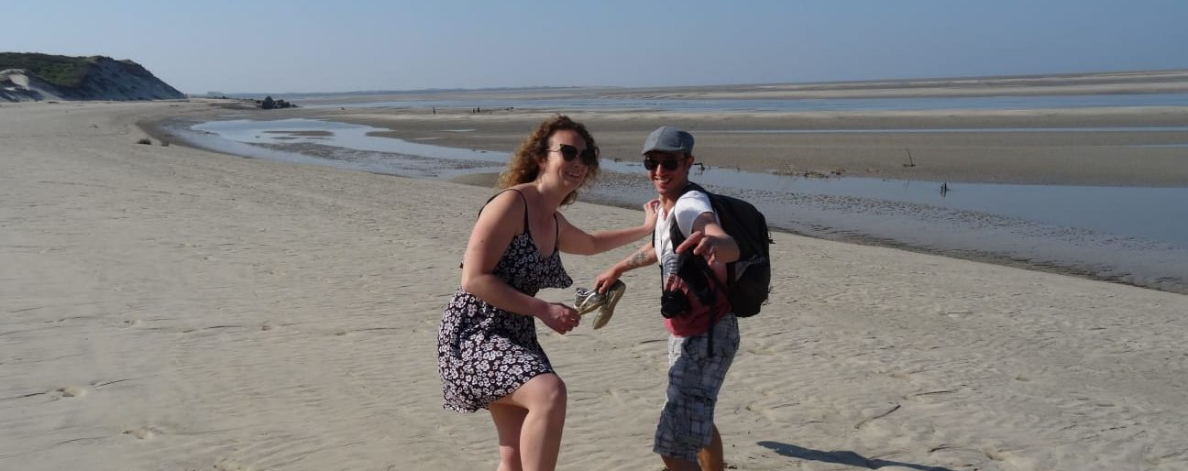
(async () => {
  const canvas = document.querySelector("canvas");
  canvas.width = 1188;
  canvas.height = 471;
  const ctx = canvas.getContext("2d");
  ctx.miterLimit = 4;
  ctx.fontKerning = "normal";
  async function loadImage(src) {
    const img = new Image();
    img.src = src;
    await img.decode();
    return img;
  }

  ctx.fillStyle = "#ffffff";
  ctx.fillRect(0, 0, 1188, 471);
  ctx.drawImage(await loadImage("img/1.png"), 0, 0, 1188, 471);
})();
